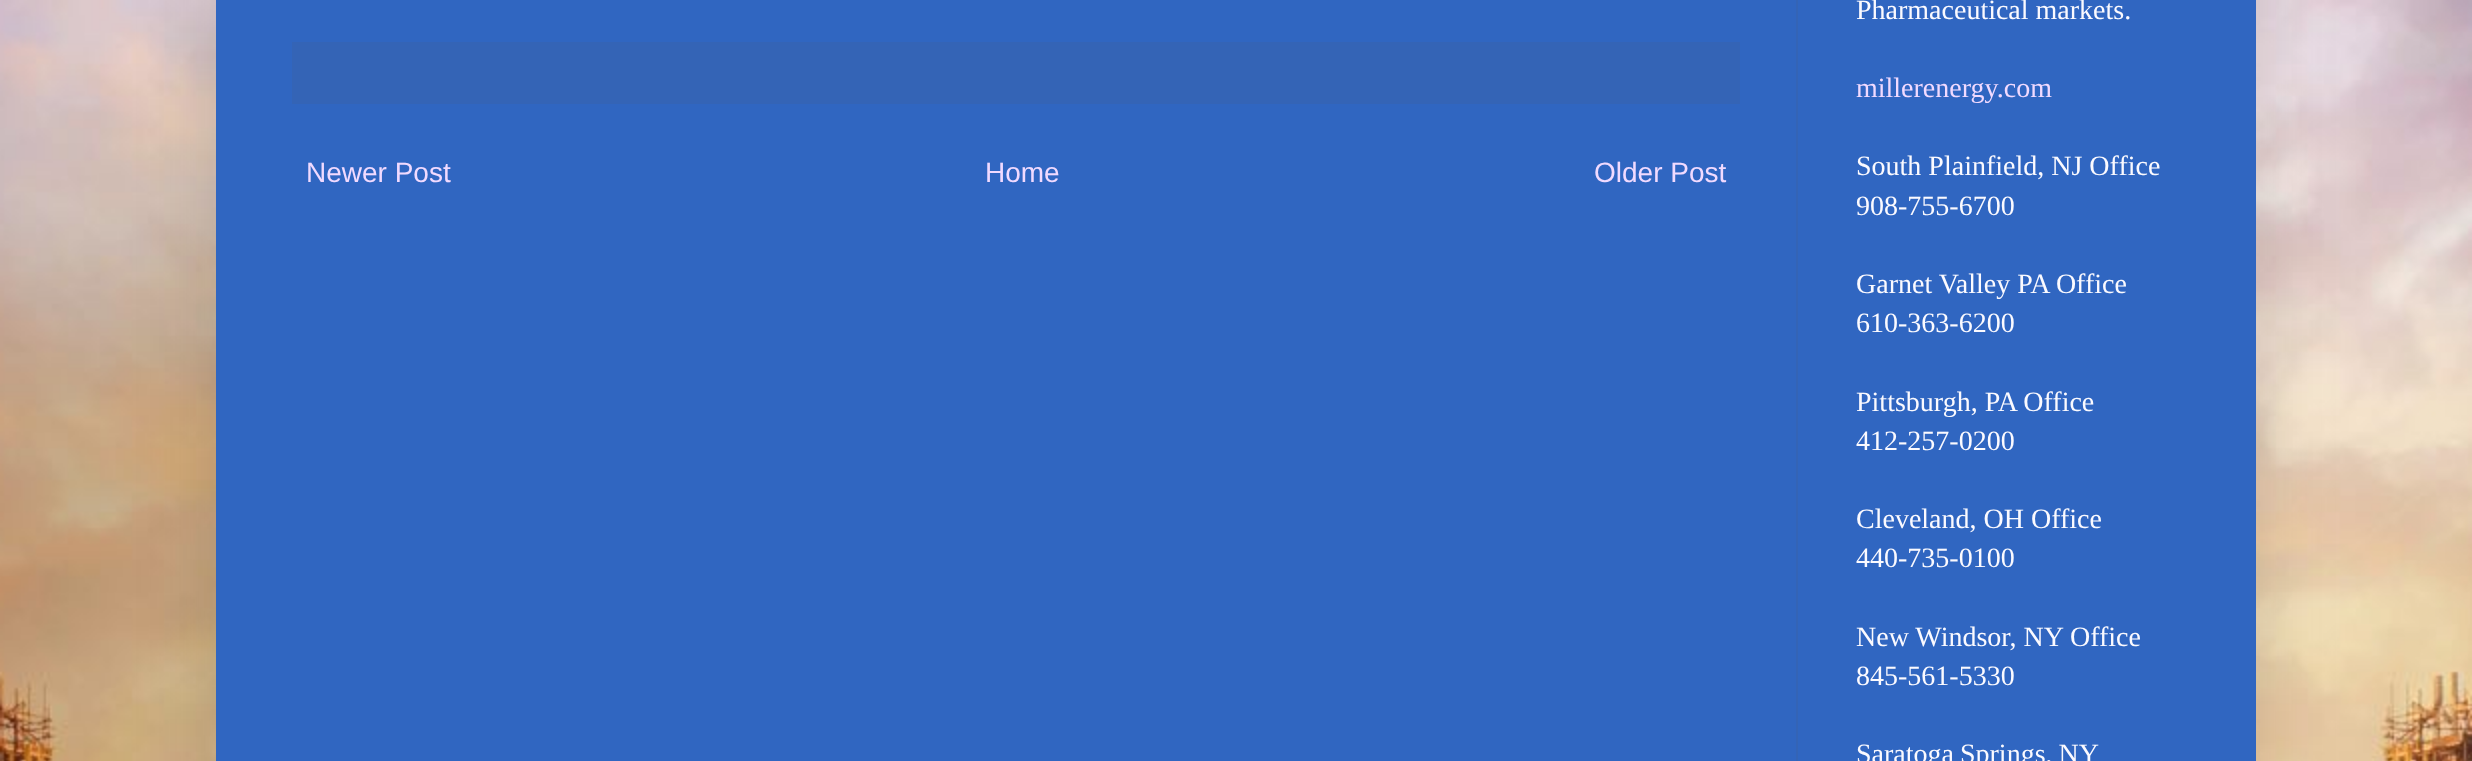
(async () => {
  const canvas = document.querySelector("canvas");
  canvas.width = 2472;
  canvas.height = 761;
  const ctx = canvas.getContext("2d");
  ctx.miterLimit = 4;
  ctx.fontKerning = "normal";
  async function loadImage(src) {
    const img = new Image();
    img.src = src;
    await img.decode();
    return img;
  }

  ctx.fillStyle = "#ffffff";
  ctx.fillRect(0, 0, 2472, 761);
  ctx.drawImage(await loadImage("img/1.png"), 0, 0, 2472, 761);
  ctx.fillStyle = "rgba(0, 0, 0, 0.15)";
  ctx.filter = "blur(40px)";
  ctx.beginPath();
  ctx.rect(216, -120, 2040, 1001);
  ctx.fill();
  ctx.filter = "none";
  for (const [x, y, w, h, color] of [
    [216, 0, 2040, 761, "#3066c1"],
    [292, 42, 1448, 62, "#3464b6"],
    [1796, 0, 2, 761, "#3464b6"],
  ]) {
    ctx.fillStyle = color;
    ctx.fillRect(x, y, w, h);
  }
  ctx.font = "28px Liberation Sans";
  ctx.fillStyle = "#f1daff";
  for (const [text, x, y] of [
    ["Newer Post", 306, 182],
    ["Home", 985, 182],
    ["Older Post", 1594, 182],
  ]) {
    ctx.fillText(text, x, y);
  }
  ctx.font = "28px Liberation Serif";
  ctx.fillStyle = "#fbfaff";
  ctx.fillText("Pharmaceutical markets.", 1856, 19);
  ctx.fillStyle = "#f1daff";
  ctx.fillText("millerenergy.com", 1856, 97);
  ctx.fillStyle = "#fbfaff";
  for (const [text, x, y] of [
    ["South Plainfield, NJ Office", 1856, 175],
    ["908-755-6700", 1856, 215],
    ["Garnet Valley PA Office", 1856, 293],
    ["610-363-6200", 1856, 332],
    ["Pittsburgh, PA Office", 1856, 411],
    ["412-257-0200", 1856, 450],
    ["Cleveland, OH Office", 1856, 528],
    ["440-735-0100", 1856, 567],
    ["New Windsor, NY Office", 1856, 646],
    ["845-561-5330", 1856, 685],
  ]) {
    ctx.fillText(text, x, y);
  }
  ctx.wordSpacing = "-1px";
  ctx.fillText("Saratoga Springs, NY", 1856, 763);
})();
